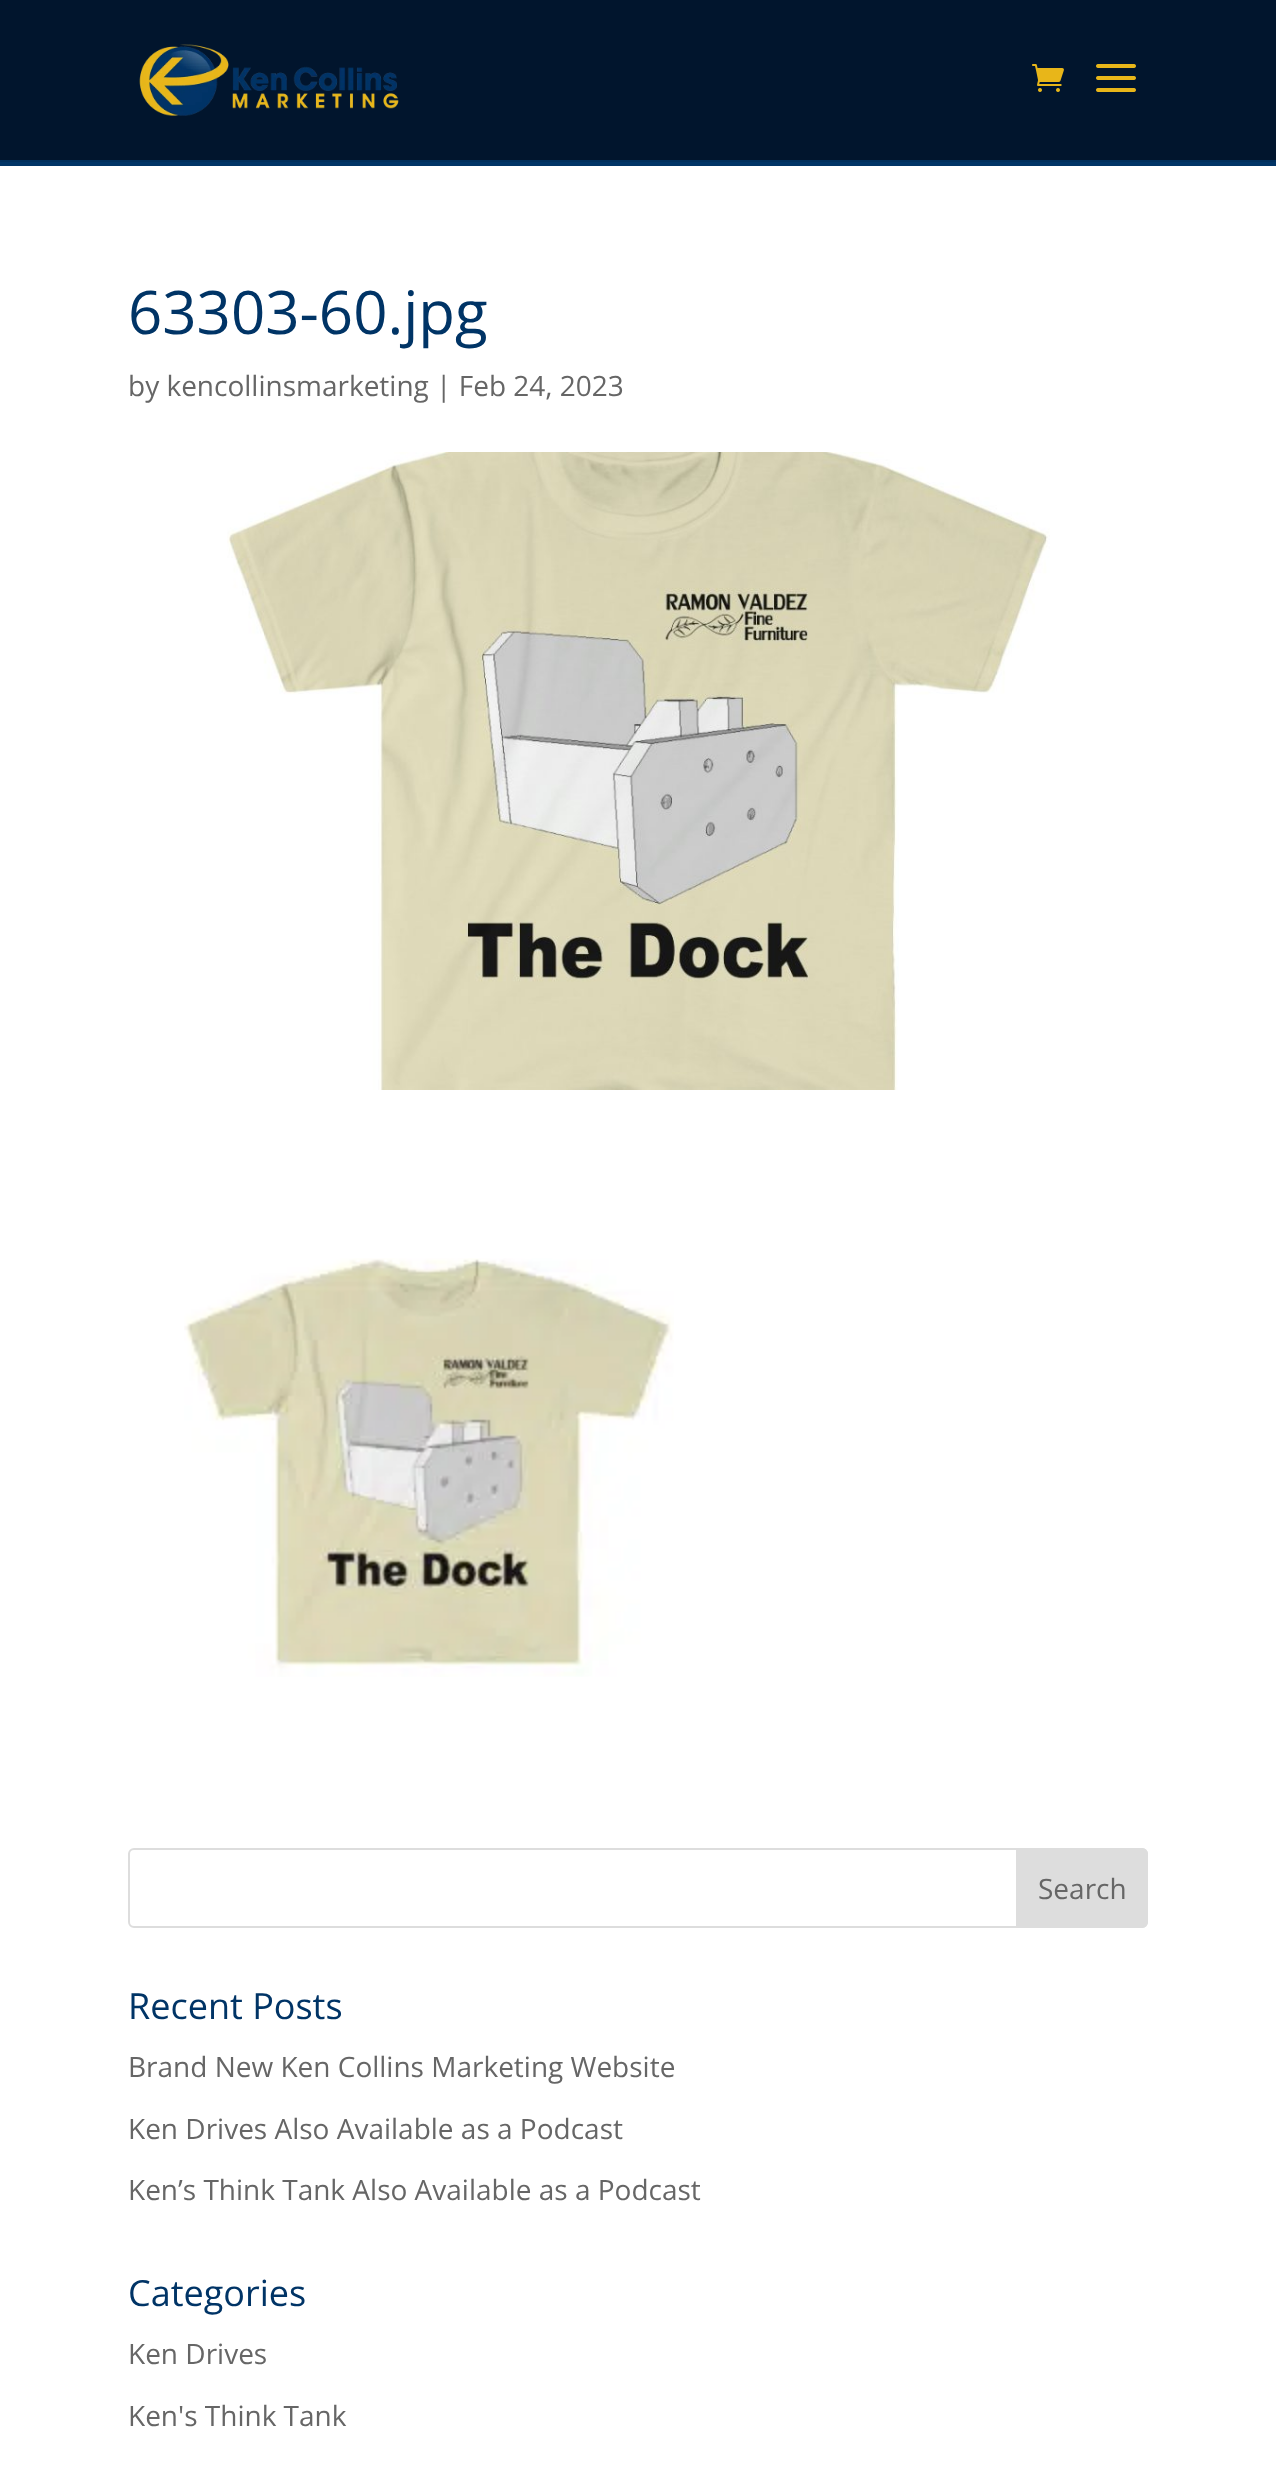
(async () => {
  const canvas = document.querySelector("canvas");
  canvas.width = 1276;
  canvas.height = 2479;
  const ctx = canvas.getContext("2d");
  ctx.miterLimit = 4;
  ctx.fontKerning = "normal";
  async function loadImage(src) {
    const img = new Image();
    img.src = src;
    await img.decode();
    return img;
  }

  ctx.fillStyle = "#003466";
  ctx.fillRect(0, 0, 1276, 2479);
  ctx.fillStyle = "#002f5c";
  ctx.fillRect(0, 160, 1276, 2);
  ctx.fillStyle = "#01152d";
  ctx.fillRect(0, 0, 1276, 160);
  ctx.drawImage(await loadImage("img/1.png"), 139, 44, 260, 72);
  ctx.drawImage(await loadImage("img/2.png"), 1032, 64, 32, 28);
  ctx.drawImage(await loadImage("img/3.png"), 1096, 64, 40, 28);
  ctx.fillStyle = "#ffffff";
  ctx.fillRect(0, 166, 1276, 2313);
  ctx.drawImage(await loadImage("img/4.png"), 227, 452, 823, 638);
  ctx.drawImage(await loadImage("img/5.png"), 184, 1258, 490, 419);
  ctx.beginPath();
  ctx.roundRect(129, 1849, 1018, 78, 5);
  ctx.strokeStyle = "#dddddd";
  ctx.lineWidth = 2;
  ctx.stroke();
  ctx.fillStyle = "#dddddd";
  ctx.beginPath();
  ctx.roundRect(1017, 1849, 130, 78, [0, 5, 5, 0]);
  ctx.fill();
  ctx.stroke();
  ctx.font = "60px Open Sans";
  ctx.fillStyle = "#003466";
  ctx.fillText("63303-60.jpg", 128, 334);
  ctx.font = "28px Open Sans";
  ctx.fillStyle = "#666666";
  ctx.fillText("by kencollinsmarketing | Feb 24, 2023", 128, 396);
  ctx.fillText("Search", 1038, 1899);
  ctx.font = "36px Open Sans";
  ctx.fillStyle = "#003466";
  ctx.fillText("Recent Posts", 128, 2019);
  ctx.font = "28px Open Sans";
  ctx.fillStyle = "#666666";
  for (const [text, x, y] of [
    ["Brand New Ken Collins Marketing Website", 128, 2077],
    ["Ken Drives Also Available as a Podcast", 128, 2139],
    ["Ken’s Think Tank Also Available as a Podcast", 128, 2200],
  ]) {
    ctx.fillText(text, x, y);
  }
  ctx.font = "36px Open Sans";
  ctx.fillStyle = "#003466";
  ctx.fillText("Categories", 128, 2306);
  ctx.font = "28px Open Sans";
  ctx.fillStyle = "#666666";
  ctx.fillText("Ken Drives", 128, 2364);
  ctx.fillText("Ken's Think Tank", 128, 2426);
})();
